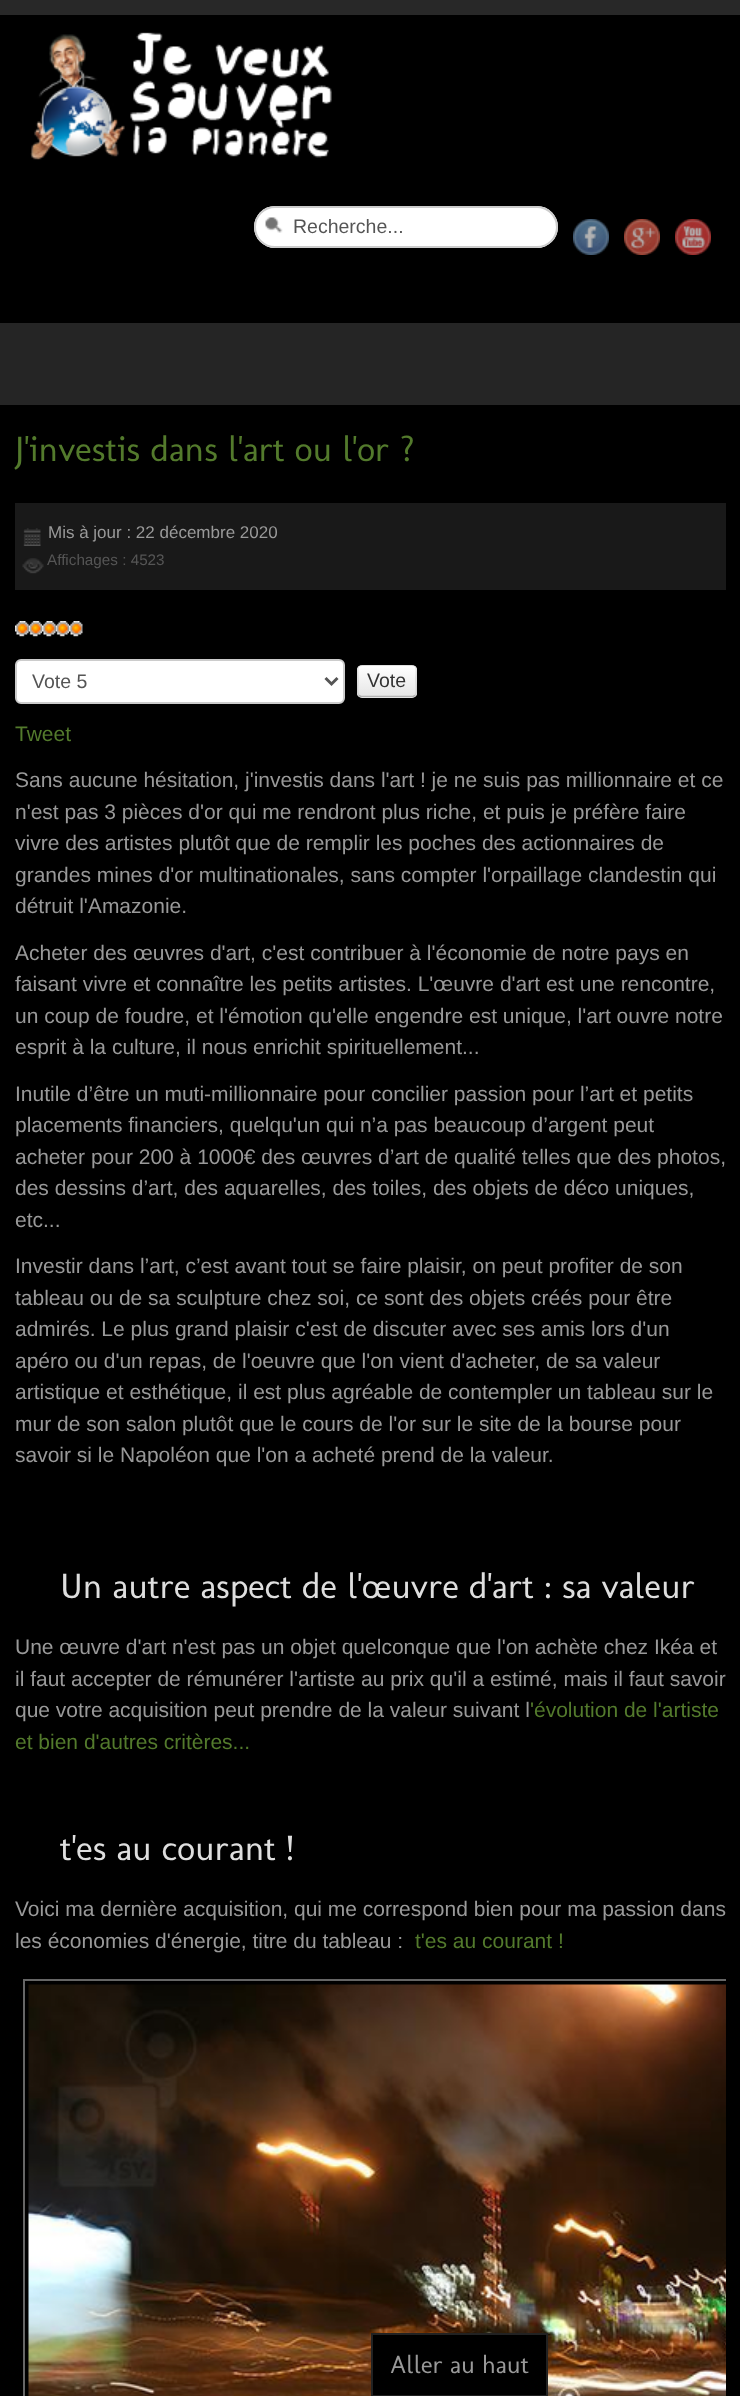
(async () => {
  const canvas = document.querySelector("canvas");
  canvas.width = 740;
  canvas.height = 2396;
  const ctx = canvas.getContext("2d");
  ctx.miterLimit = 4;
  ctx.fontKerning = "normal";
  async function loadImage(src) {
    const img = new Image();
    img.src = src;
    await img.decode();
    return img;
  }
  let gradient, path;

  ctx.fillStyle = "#000000";
  ctx.fillRect(0, 0, 740, 2396);
  ctx.fillStyle = "#282828";
  ctx.fillRect(0, 0, 740, 15);
  ctx.drawImage(await loadImage("img/1.png"), 30, 32, 302, 128);
  ctx.fillStyle = "#ffffff";
  ctx.beginPath();
  ctx.roundRect(254, 206, 304, 42, 21);
  ctx.fill();
  ctx.drawImage(await loadImage("img/2.png"), 265, 217, 18, 16);
  ctx.fillStyle = "#ececec";
  path = new Path2D("M274 208H537C548 208 556 217 556 228C556 231 555 234 554 236C556 233 557 230 557 226C557 216 548 207 538 207H274C264 207 255 216 255 226V227C255 217 264 208 274 208Z");
  ctx.fill(path);
  ctx.beginPath();
  ctx.roundRect(255, 207, 302, 40, 20);
  ctx.strokeStyle = "#cccccc";
  ctx.lineWidth = 2;
  ctx.stroke();
  ctx.drawImage(await loadImage("img/3.png"), 573, 219, 36, 36);
  ctx.drawImage(await loadImage("img/4.png"), 624, 219, 36, 36);
  ctx.drawImage(await loadImage("img/5.png"), 675, 219, 36, 36);
  ctx.fillStyle = "#252525";
  ctx.fillRect(0, 323, 740, 82);
  ctx.fillStyle = "#191919";
  ctx.fillRect(15, 503, 711, 87);
  ctx.drawImage(await loadImage("img/6.png"), 23, 528, 18, 18);
  ctx.drawImage(await loadImage("img/7.png"), 22, 558, 22, 16);
  ctx.drawImage(await loadImage("img/8.png"), 15, 621, 14, 16);
  ctx.drawImage(await loadImage("img/9.png"), 28, 621, 14, 16);
  ctx.drawImage(await loadImage("img/8.png"), 42, 621, 14, 16);
  ctx.drawImage(await loadImage("img/9.png"), 55, 621, 14, 16);
  ctx.drawImage(await loadImage("img/8.png"), 69, 621, 14, 16);
  ctx.fillStyle = "#ffffff";
  ctx.beginPath();
  ctx.roundRect(16, 660, 328, 43, 5);
  ctx.fill();
  ctx.stroke();
  path = new Path2D("M325.5 678L331.5 684L337.5 678");
  ctx.strokeStyle = "#555555";
  ctx.lineWidth = 3;
  ctx.stroke(path);
  ctx.fillStyle = "#f5f5f5";
  ctx.beginPath();
  ctx.roundRect(357, 665, 60, 33, 5);
  ctx.fill();
  ctx.save();
  ctx.beginPath();
  ctx.roundRect(357, 665, 60, 33, 5);
  ctx.clip();
  gradient = ctx.createLinearGradient(387, 666, 387, 696);
  gradient.addColorStop(0, "#ffffff");
  gradient.addColorStop(1, "#e6e6e6");
  ctx.fillStyle = gradient;
  ctx.fillRect(357, 666, 60, 30);
  ctx.restore();
  ctx.fillStyle = "#ffffff";
  path = new Path2D("M362 668H412C414 668 416 669 416 670V669C416 667 415 666 413 666H362C360 666 359 667 359 669Z");
  ctx.fill(path);
  path = new Path2D("M415 695.5L413 696.5H361L359 695.5");
  ctx.strokeStyle = "#b3b3b3";
  ctx.lineWidth = 1.5;
  ctx.stroke(path);
  path = new Path2D("M359 695.5C356.5 693.5 358 684 358 681C358 665 354.5 665 370 665H404C419.5 665 416 665 416 681C416 684 417.5 693.5 415 695.5");
  ctx.strokeStyle = "rgba(0, 0, 0, 0.1)";
  ctx.stroke(path);
  ctx.save();
  ctx.beginPath();
  ctx.rect(15, 405, 711, 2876);
  ctx.clip();
  ctx.strokeStyle = "#666666";
  ctx.lineWidth = 2;
  ctx.strokeRect(24, 1980, 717, 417);
  ctx.restore();
  ctx.drawImage(await loadImage("img/10.png"), 28, 1984, 698, 412);
  ctx.fillStyle = "#000000";
  ctx.beginPath();
  ctx.rect(372, 2334, 175, 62);
  ctx.fill();
  ctx.strokeStyle = "#222222";
  ctx.lineWidth = 2;
  ctx.stroke();
  ctx.font = "19.5px Liberation Sans";
  ctx.fillStyle = "#555555";
  ctx.fillText("Recherche...", 293, 233);
  ctx.font = "35.75px Molengo";
  ctx.fillStyle = "#537a2c";
  ctx.fillText("J'investis dans l'art ou l'or ?", 15, 461);
  ctx.font = "17px Liberation Sans";
  ctx.fillStyle = "#999999";
  ctx.fillText("Mis à jour : 22 décembre 2020", 48, 538);
  ctx.font = "15.25px Liberation Sans";
  ctx.fillStyle = "#555555";
  ctx.fillText("Affichages : 4523", 47, 565);
  ctx.font = "19.5px Liberation Sans";
  ctx.fillText("Vote 5", 32, 688);
  ctx.fillStyle = "#333333";
  ctx.fillText("Vote", 367, 687);
  ctx.font = "21px Liberation Sans";
  ctx.fillStyle = "#537a2c";
  ctx.fillText("Tweet", 15, 741);
  ctx.fillStyle = "#999999";
  for (const [text, x, y] of [
    ["Sans aucune hésitation, j'investis dans l'art ! je ne suis pas millionnaire et ce", 15, 787],
    ["n'est pas 3 pièces d'or qui me rendront plus riche, et puis je préfère faire", 15, 819],
    ["vivre des artistes plutôt que de remplir les poches des actionnaires de", 15, 850],
    ["grandes mines d'or multinationales, sans compter l'orpaillage clandestin qui", 15, 882],
    ["détruit l'Amazonie.", 15, 913],
    ["Acheter des œuvres d'art, c'est contribuer à l'économie de notre pays en", 15, 960],
    ["faisant vivre et connaître les petits artistes. L'œuvre d'art est une rencontre,", 15, 991],
    ["un coup de foudre, et l'émotion qu'elle engendre est unique, l'art ouvre notre", 15, 1023],
    ["esprit à la culture, il nous enrichit spirituellement...", 15, 1054],
    ["Inutile d’être un muti-millionnaire pour concilier passion pour l’art et petits", 15, 1101],
    ["placements financiers, quelqu'un qui n’a pas beaucoup d’argent peut", 15, 1132],
    ["acheter pour 200 à 1000€ des œuvres d’art de qualité telles que des photos,", 15, 1164],
    ["des dessins d’art, des aquarelles, des toiles, des objets de déco uniques,", 15, 1195],
    ["etc...", 15, 1227],
    ["Investir dans l’art, c’est avant tout se faire plaisir, on peut profiter de son", 15, 1273],
    ["tableau ou de sa sculpture chez soi, ce sont des objets créés pour être", 15, 1305],
    ["admirés. Le plus grand plaisir c'est de discuter avec ses amis lors d'un", 15, 1336],
    ["apéro ou d'un repas, de l'oeuvre que l'on vient d'acheter, de sa valeur", 15, 1368],
    ["artistique et esthétique, il est plus agréable de contempler un tableau sur le", 15, 1399],
    ["mur de son salon plutôt que le cours de l'or sur le site de la bourse pour", 15, 1431],
    ["savoir si le Napoléon que l'on a acheté prend de la valeur.", 15, 1462],
  ]) {
    ctx.fillText(text, x, y);
  }
  ctx.font = "35.75px Molengo";
  ctx.fillStyle = "#dedede";
  ctx.fillText("Un autre aspect de l'œuvre d'art : sa valeur", 60, 1598);
  ctx.font = "21px Liberation Sans";
  ctx.fillStyle = "#999999";
  for (const [text, x, y] of [
    ["Une œuvre d'art n'est pas un objet quelconque que l'on achète chez Ikéa et", 15, 1654],
    ["il faut accepter de rémunérer l'artiste au prix qu'il a estimé, mais il faut savoir", 15, 1686],
    ["que votre acquisition peut prendre de la valeur suivant l", 15, 1717],
  ]) {
    ctx.fillText(text, x, y);
  }
  ctx.fillStyle = "#537a2c";
  ctx.fillText("'évolution de l'artiste", 530, 1717);
  ctx.fillText("et bien d'autres critères...", 15, 1749);
  ctx.font = "35.75px Molengo";
  ctx.fillStyle = "#dedede";
  ctx.fillText("t'es au courant !", 60, 1860);
  ctx.font = "21px Liberation Sans";
  ctx.fillStyle = "#999999";
  ctx.fillText("Voici ma dernière acquisition, qui me correspond bien pour ma passion dans", 15, 1916);
  ctx.fillText("les économies d'énergie, titre du tableau :", 15, 1948);
  ctx.fillStyle = "#537a2c";
  ctx.fillText("t'es au courant !", 415, 1948);
  ctx.font = "25.25px Molengo";
  ctx.fillStyle = "#999999";
  ctx.fillText("Aller au haut", 390, 2373);
})();
